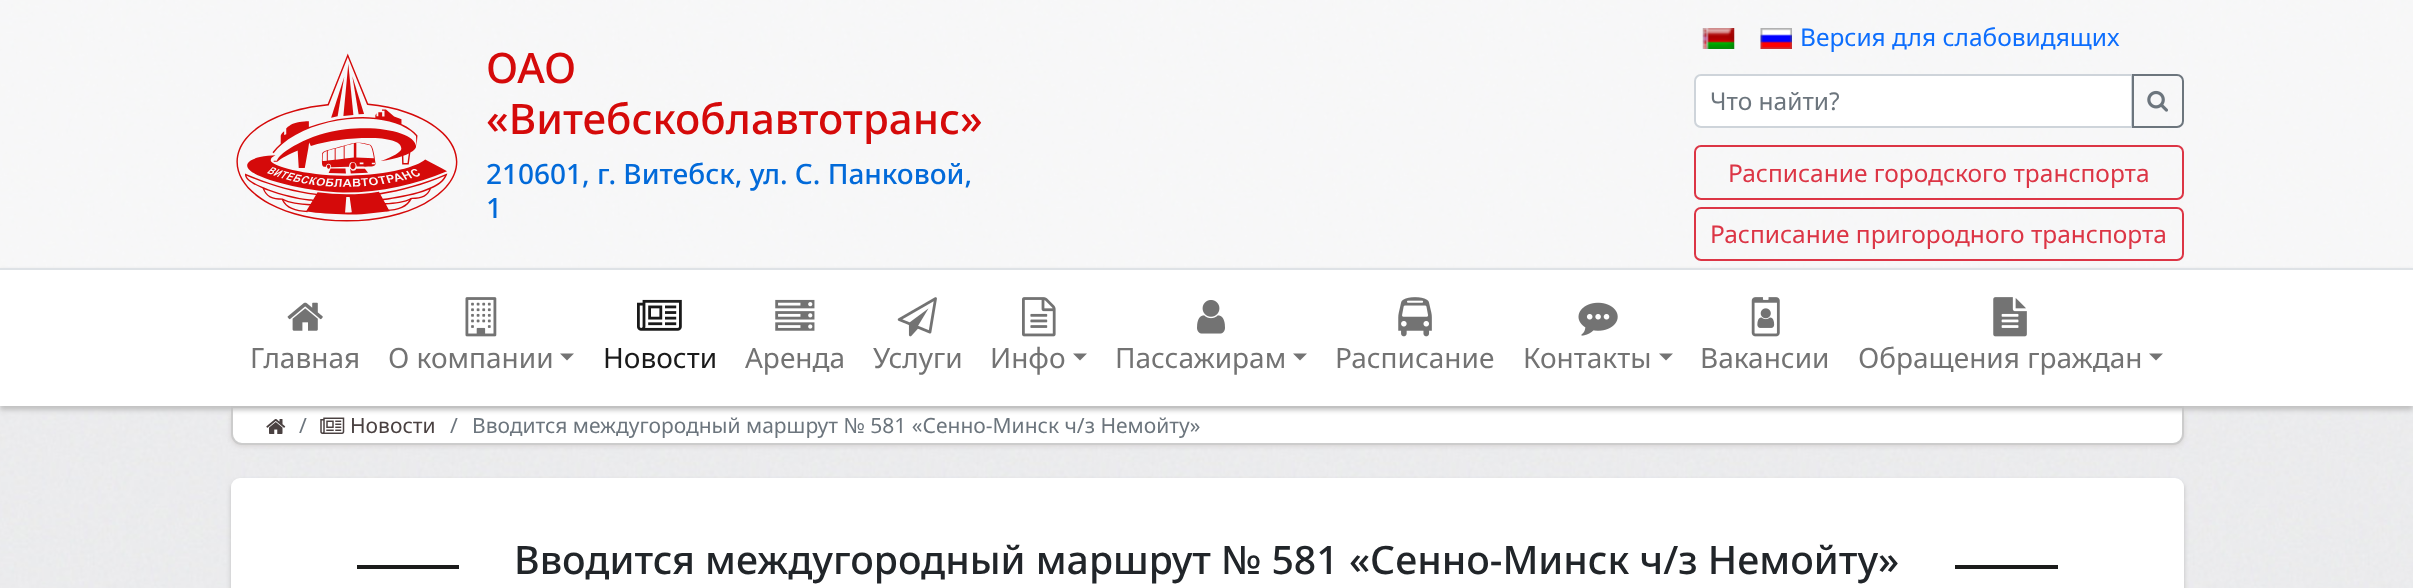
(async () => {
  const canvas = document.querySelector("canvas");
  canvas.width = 2413;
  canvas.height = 588;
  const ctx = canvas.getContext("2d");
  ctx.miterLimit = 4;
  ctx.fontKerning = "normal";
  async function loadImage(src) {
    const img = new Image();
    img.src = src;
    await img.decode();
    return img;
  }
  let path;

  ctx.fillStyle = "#ffffff";
  ctx.fillRect(0, 0, 2413, 588);
  ctx.drawImage(await loadImage("img/1.png"), 0, 0, 2413, 588);
  ctx.fillStyle = "rgba(255, 255, 255, 0.6)";
  ctx.fillRect(0, 0, 2413, 268);
  ctx.drawImage(await loadImage("img/2.png"), 236, 53, 222, 169);
  ctx.drawImage(await loadImage("img/3.png"), 1702, 28, 33, 21);
  ctx.drawImage(await loadImage("img/4.png"), 1760, 28, 32, 21);
  ctx.fillStyle = "#ffffff";
  ctx.beginPath();
  ctx.roundRect(1695, 75, 437, 52, [6, 0, 0, 6]);
  ctx.fill();
  ctx.strokeStyle = "#ced4da";
  ctx.lineWidth = 2;
  ctx.stroke();
  ctx.beginPath();
  ctx.roundRect(2133, 75, 50, 52, [0, 6, 6, 0]);
  ctx.strokeStyle = "#6c757d";
  ctx.stroke();
  ctx.drawImage(await loadImage("img/5.png"), 2147, 90, 21, 22);
  ctx.beginPath();
  ctx.roundRect(1695, 146, 488, 53, 6);
  ctx.strokeStyle = "#dc3545";
  ctx.stroke();
  ctx.beginPath();
  ctx.roundRect(1695, 208, 488, 52, 6);
  ctx.stroke();
  ctx.fillStyle = "#d5d1d1";
  ctx.filter = "blur(2.5px)";
  ctx.beginPath();
  ctx.roundRect(231, 408, 1953, 38, 11);
  ctx.fill();
  ctx.filter = "none";
  ctx.fillStyle = "#ffffff";
  ctx.beginPath();
  ctx.roundRect(232, 407, 1951, 37, [0, 0, 10, 10]);
  ctx.fill();
  ctx.strokeStyle = "#cccccc";
  ctx.stroke();
  ctx.drawImage(await loadImage("img/18.png"), 320, 417, 25, 17);
  ctx.fillStyle = "#c0c0c0";
  ctx.filter = "blur(2.5px)";
  ctx.beginPath();
  ctx.rect(0, 271, 2413, 139);
  ctx.fill();
  ctx.filter = "none";
  ctx.fillStyle = "#ffffff";
  ctx.fillRect(0, 270, 2413, 136);
  ctx.fillStyle = "#dee2e6";
  ctx.fillRect(0, 268, 2413, 2);
  ctx.drawImage(await loadImage("img/6.png"), 287, 302, 36, 29);
  ctx.drawImage(await loadImage("img/7.png"), 465, 297, 32, 40);
  ctx.fillStyle = "#737373";
  path = new Path2D("M560 353.5H574L567 360.5Z");
  ctx.fill(path);
  ctx.drawImage(await loadImage("img/8.png"), 637, 299, 45, 32);
  ctx.drawImage(await loadImage("img/9.png"), 775, 299, 40, 32);
  ctx.drawImage(await loadImage("img/10.png"), 897, 297, 40, 40);
  ctx.drawImage(await loadImage("img/11.png"), 1022, 297, 34, 40);
  path = new Path2D("M1073 353.5H1087L1080 360.5Z");
  ctx.fill(path);
  ctx.drawImage(await loadImage("img/12.png"), 1197, 300, 28, 34);
  path = new Path2D("M1293 353.5H1307L1300 360.5Z");
  ctx.fill(path);
  ctx.drawImage(await loadImage("img/13.png"), 1398, 297, 34, 40);
  ctx.drawImage(await loadImage("img/14.png"), 1578, 302, 40, 34);
  path = new Path2D("M1659 353.5H1673L1666 360.5Z");
  ctx.fill(path);
  ctx.drawImage(await loadImage("img/15.png"), 1751, 297, 29, 40);
  ctx.drawImage(await loadImage("img/16.png"), 1993, 297, 34, 40);
  path = new Path2D("M2149 353.5H2163L2156 360.5Z");
  ctx.fill(path);
  ctx.drawImage(await loadImage("img/17.png"), 266, 419, 20, 15);
  ctx.fillStyle = "#c0c0c0";
  ctx.filter = "blur(2.5px)";
  ctx.beginPath();
  ctx.roundRect(231, 481, 1953, 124, 9);
  ctx.fill();
  ctx.filter = "none";
  ctx.fillStyle = "#ffffff";
  ctx.beginPath();
  ctx.roundRect(231, 478, 1953, 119, 9);
  ctx.fill();
  ctx.fillStyle = "#1b1c1b";
  ctx.fillRect(357, 565, 102, 4);
  ctx.fillRect(1955, 565, 103, 4);
  ctx.font = "500 42px Noto Sans";
  ctx.fillStyle = "#d50a0a";
  ctx.fillText("ОАО", 486, 83);
  ctx.fillText("«Витебскоблавтотранс»", 486, 134);
  ctx.font = "500 28px Noto Sans";
  ctx.fillStyle = "#026ad9";
  ctx.fillText("210601, г. Витебск, ул. С. Панковой,", 486, 184);
  ctx.fillText("1", 486, 218);
  ctx.font = "24.5px Noto Sans";
  ctx.fillStyle = "#0d6efd";
  ctx.fillText("Версия для слабовидящих", 1800, 46);
  ctx.fillStyle = "#6c757d";
  ctx.fillText("Что найти?", 1710, 110);
  ctx.fillStyle = "#dc3545";
  ctx.fillText("Расписание городского транспорта", 1728, 182);
  ctx.fillText("Расписание пригородного транспорта", 1710, 243);
  ctx.font = "28px Noto Sans";
  ctx.fillStyle = "#737373";
  ctx.fillText("Главная", 250, 368);
  ctx.fillText("О компании", 388, 368);
  ctx.fillStyle = "#1a1a1a";
  ctx.fillText("Новости", 603, 368);
  ctx.fillStyle = "#737373";
  for (const [text, x, y] of [
    ["Аренда", 745, 368],
    ["Услуги", 873, 368],
    ["Инфо", 990, 368],
    ["Пассажирам", 1115, 368],
    ["Расписание", 1335, 368],
    ["Контакты", 1523, 368],
    ["Вакансии", 1700, 368],
    ["Обращения граждан", 1858, 368],
  ]) {
    ctx.fillText(text, x, y);
  }
  ctx.font = "21px Noto Sans";
  ctx.fillStyle = "#6c757d";
  ctx.fillText("/", 299, 433);
  ctx.fillStyle = "#4a4141";
  ctx.fillText("Новости", 350, 433);
  ctx.fillStyle = "#6c757d";
  ctx.fillText("/", 450, 433);
  ctx.fillText("Вводится междугородный маршрут № 581 «Сенно-Минск ч/з Немойту»", 472, 433);
  ctx.font = "500 39.2px Noto Sans";
  ctx.fillStyle = "#212529";
  ctx.fillText("Вводится междугородный маршрут № 581 «Сенно-Минск ч/з Немойту»", 514, 574);
})();
